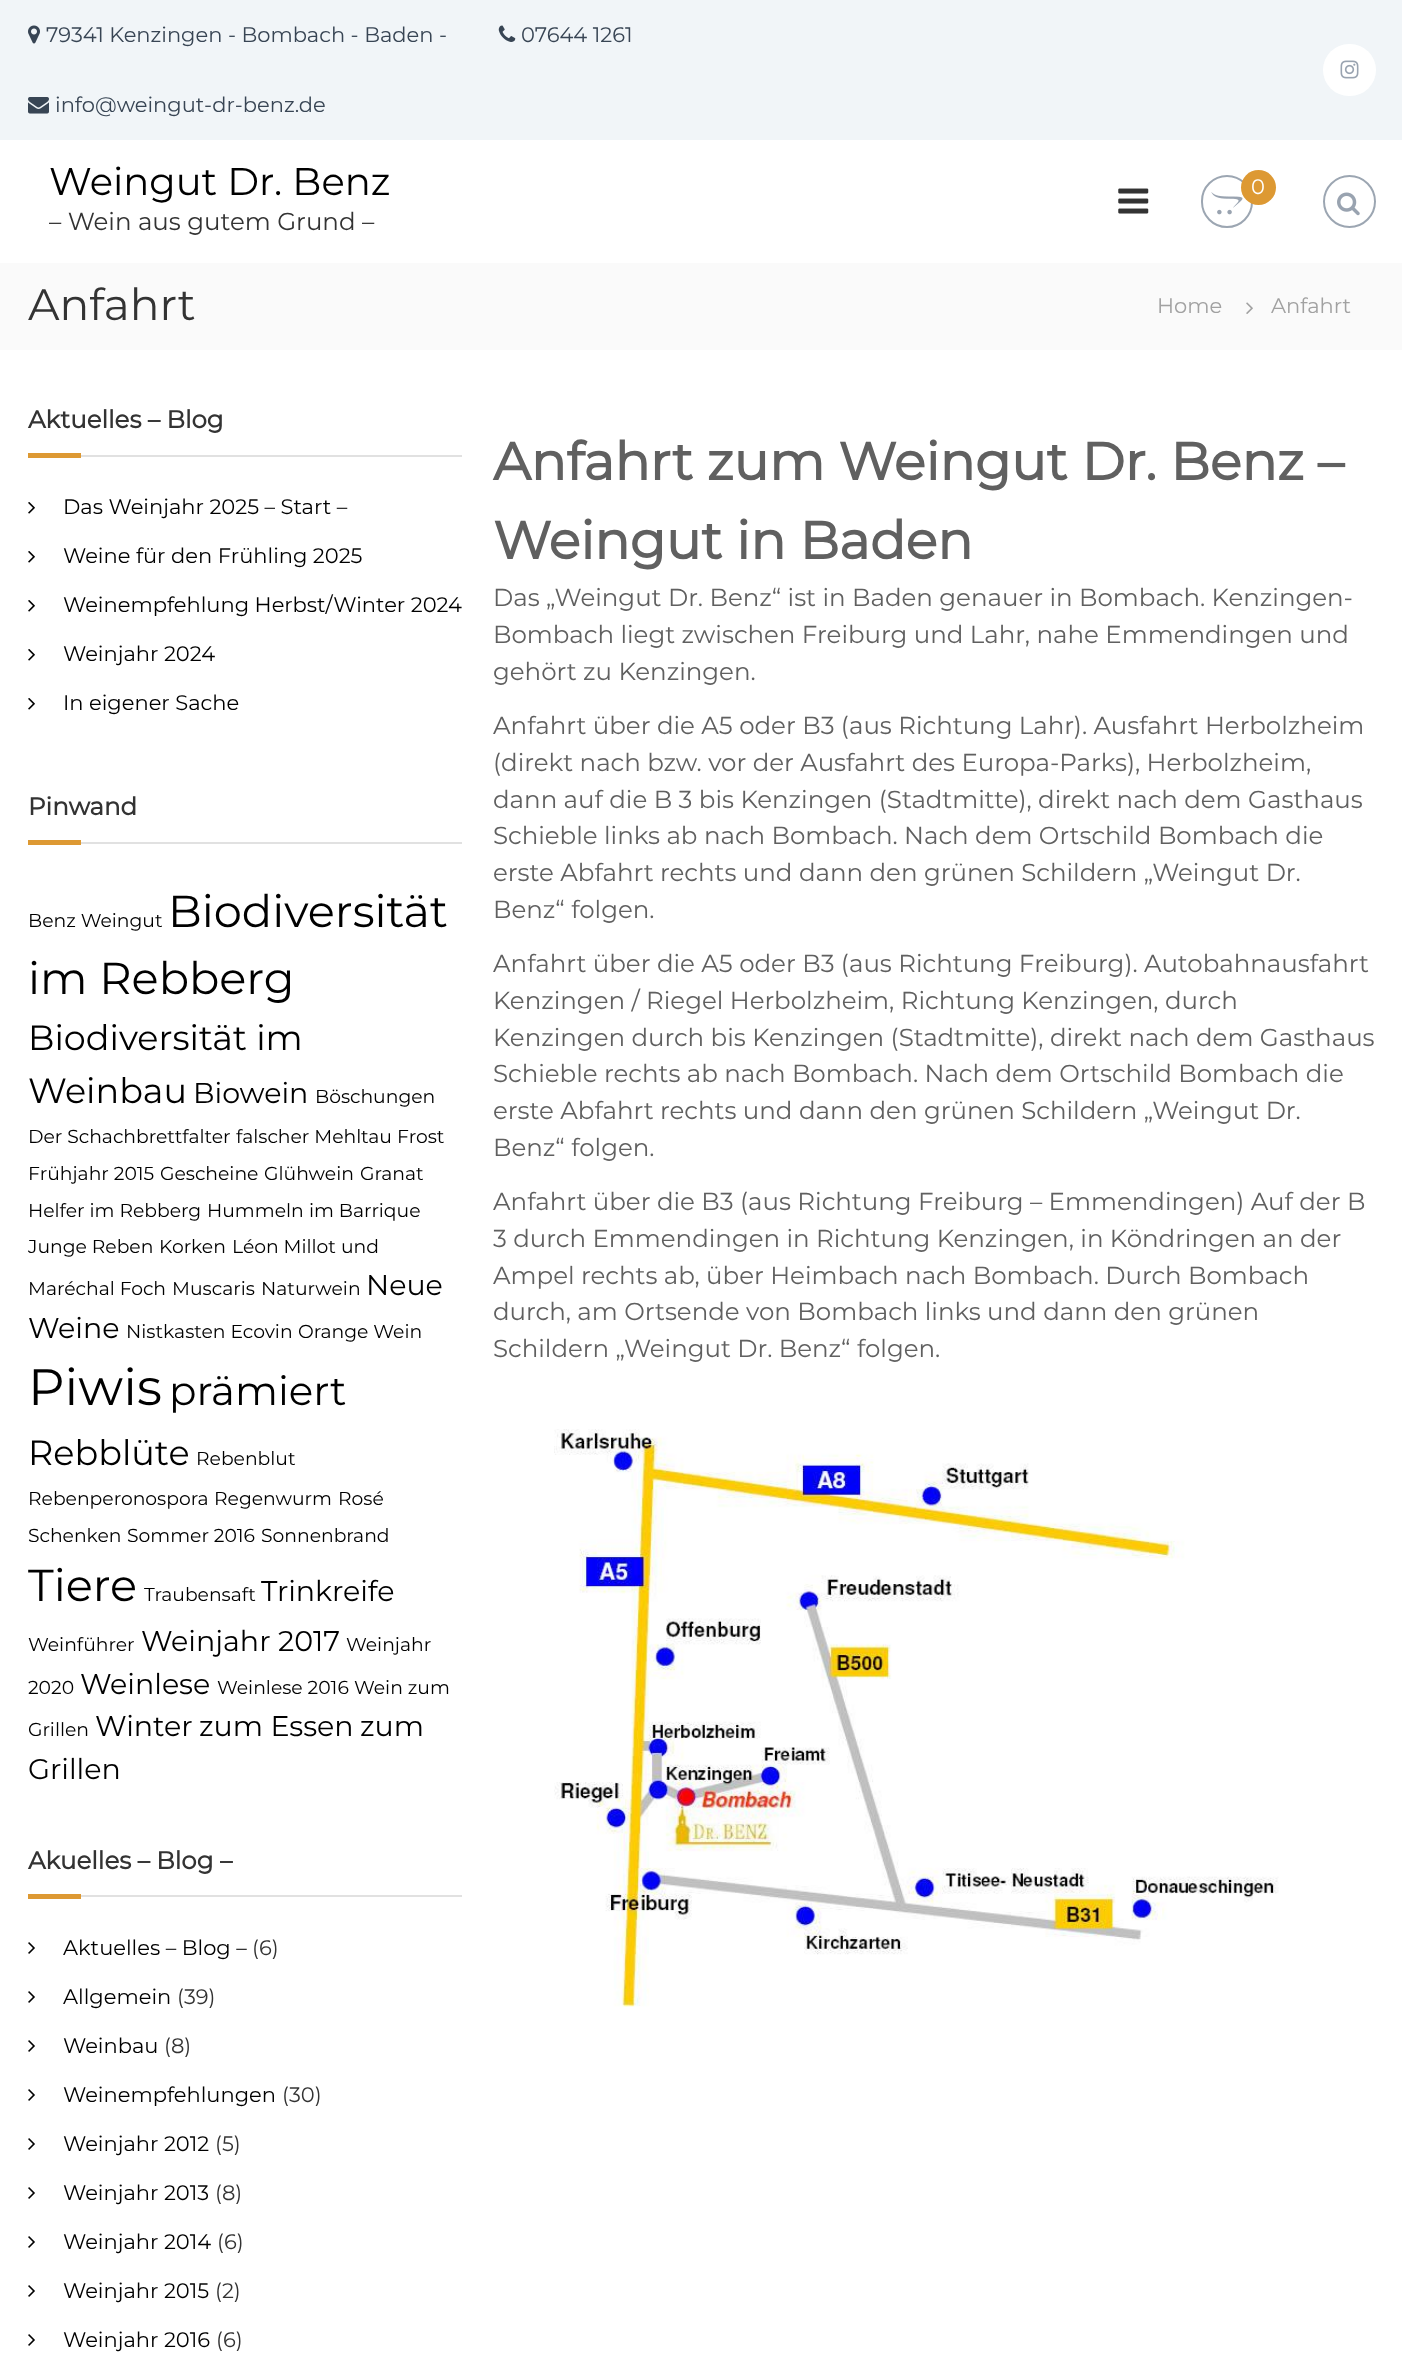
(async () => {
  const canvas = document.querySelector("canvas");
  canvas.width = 1402;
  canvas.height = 2373;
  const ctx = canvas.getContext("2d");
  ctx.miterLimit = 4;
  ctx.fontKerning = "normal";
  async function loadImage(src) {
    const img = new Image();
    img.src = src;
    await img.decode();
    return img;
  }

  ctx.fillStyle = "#ffffff";
  ctx.fillRect(0, 0, 1402, 2373);
  ctx.fillStyle = "#f1f5f8";
  ctx.fillRect(0, 0, 1402, 140);
  ctx.drawImage(await loadImage("img/1.png"), 28, 25, 12, 19);
  ctx.drawImage(await loadImage("img/2.png"), 498, 25, 18, 17);
  ctx.drawImage(await loadImage("img/3.png"), 28, 97, 21, 17);
  ctx.fillStyle = "#ffffff";
  ctx.beginPath();
  ctx.roundRect(1323, 44, 53, 52, 26);
  ctx.fill();
  ctx.drawImage(await loadImage("img/4.png"), 1340, 60, 19, 19);
  ctx.drawImage(await loadImage("img/5.png"), 1118, 188, 31, 26);
  ctx.beginPath();
  ctx.roundRect(1202, 176, 50, 51, 25);
  ctx.strokeStyle = "#9ca6b2";
  ctx.lineWidth = 2;
  ctx.stroke();
  ctx.drawImage(await loadImage("img/6.png"), 1211, 192, 32, 23);
  ctx.fillStyle = "#dd9933";
  ctx.beginPath();
  ctx.arc(1258.5, 187.5, 17.5, 0, Math.PI * 2);
  ctx.fill();
  ctx.beginPath();
  ctx.arc(1349.5, 201.5, 25.5, 0, Math.PI * 2);
  ctx.stroke();
  ctx.drawImage(await loadImage("img/7.png"), 1337, 192, 23, 24);
  ctx.fillStyle = "#fafafa";
  ctx.fillRect(0, 263, 1402, 87);
  ctx.drawImage(await loadImage("img/8.png"), 1246, 302, 7, 12);
  ctx.fillStyle = "#dd9933";
  ctx.fillRect(28, 453, 53, 5);
  ctx.fillStyle = "#e1e1e1";
  ctx.fillRect(81, 455, 381, 2);
  ctx.drawImage(await loadImage("img/9.png"), 28, 502, 7, 12);
  ctx.drawImage(await loadImage("img/9.png"), 28, 551, 7, 12);
  ctx.drawImage(await loadImage("img/9.png"), 28, 600, 7, 12);
  ctx.drawImage(await loadImage("img/9.png"), 28, 649, 7, 12);
  ctx.drawImage(await loadImage("img/9.png"), 28, 698, 7, 12);
  for (const [x, y, w, h, color] of [
    [28, 840, 53, 5, "#dd9933"],
    [81, 842, 381, 2, "#e1e1e1"],
    [28, 1894, 53, 5, "#dd9933"],
    [81, 1895, 381, 2, "#e1e1e1"],
  ]) {
    ctx.fillStyle = color;
    ctx.fillRect(x, y, w, h);
  }
  ctx.drawImage(await loadImage("img/10.png"), 28, 1942, 7, 12);
  ctx.drawImage(await loadImage("img/10.png"), 28, 1991, 7, 12);
  ctx.drawImage(await loadImage("img/10.png"), 28, 2040, 7, 12);
  ctx.drawImage(await loadImage("img/10.png"), 28, 2089, 7, 12);
  ctx.drawImage(await loadImage("img/10.png"), 28, 2138, 7, 12);
  ctx.drawImage(await loadImage("img/10.png"), 28, 2187, 7, 12);
  ctx.drawImage(await loadImage("img/10.png"), 28, 2236, 7, 12);
  ctx.drawImage(await loadImage("img/10.png"), 28, 2285, 7, 12);
  ctx.drawImage(await loadImage("img/10.png"), 28, 2334, 7, 12);
  ctx.drawImage(await loadImage("img/11.png"), 554, 1429, 725, 578);
  ctx.font = "21px Montserrat";
  ctx.fillStyle = "#384554";
  for (const [text, x, y] of [
    ["79341 Kenzingen - Bombach - Baden -", 46, 42],
    ["07644 1261", 521, 42],
    ["info@weingut-dr-benz.de", 55, 112],
  ]) {
    ctx.fillText(text, x, y);
  }
  ctx.font = "38.5px Montserrat";
  ctx.fillStyle = "#000000";
  ctx.fillText("Weingut Dr. Benz", 49, 195);
  ctx.font = "24.5px Montserrat";
  ctx.fillStyle = "#333333";
  ctx.fillText("– Wein aus gutem Grund –", 49, 230);
  ctx.font = "21px Montserrat";
  ctx.fillStyle = "#ffffff";
  ctx.fillText("0", 1251, 194);
  ctx.font = "44px Montserrat";
  ctx.fillStyle = "#333333";
  ctx.fillText("Anfahrt", 28, 320);
  ctx.font = "21px Montserrat";
  ctx.fillStyle = "#a1a1a1";
  ctx.fillText("Home", 1157, 313);
  ctx.fillText("Anfahrt", 1271, 313);
  ctx.font = "bold 24.5px Montserrat";
  ctx.fillStyle = "#333333";
  ctx.fillText("Aktuelles – Blog", 28, 428);
  ctx.font = "21px Montserrat";
  ctx.fillStyle = "#000000";
  for (const [text, x, y] of [
    ["Das Weinjahr 2025 – Start –", 63, 514],
    ["Weine für den Frühling 2025", 63, 563],
    ["Weinempfehlung Herbst/Winter 2024", 63, 612],
    ["Weinjahr 2024", 63, 661],
    ["In eigener Sache", 63, 710],
  ]) {
    ctx.fillText(text, x, y);
  }
  ctx.font = "bold 24.5px Montserrat";
  ctx.fillStyle = "#333333";
  ctx.fillText("Pinwand", 28, 815);
  ctx.font = "18.75px Montserrat";
  ctx.fillStyle = "#000000";
  ctx.fillText("Benz Weingut", 28, 927);
  ctx.font = "44.75px Montserrat";
  ctx.fillText("Biodiversität", 168, 927);
  ctx.fillText("im Rebberg", 28, 994);
  ctx.font = "35px Montserrat";
  ctx.fillText("Biodiversität im", 28, 1050);
  ctx.fillText("Weinbau", 28, 1103);
  ctx.font = "28.5px Montserrat";
  ctx.fillText("Biowein", 193, 1103);
  ctx.font = "18.75px Montserrat";
  for (const [text, x, y] of [
    ["Böschungen", 315, 1103],
    ["Der Schachbrettfalter", 28, 1143],
    ["falscher Mehltau", 236, 1143],
    ["Frost", 397, 1143],
    ["Frühjahr 2015", 28, 1180],
    ["Gescheine", 160, 1180],
    ["Glühwein", 264, 1180],
    ["Granat", 360, 1180],
    ["Helfer im Rebberg", 28, 1217],
    ["Hummeln", 207, 1217],
    ["im Barrique", 309, 1217],
    ["Junge Reben", 28, 1253],
    ["Korken", 159, 1253],
    ["Léon Millot und", 232, 1253],
    ["Maréchal Foch", 28, 1295],
    ["Muscaris", 172, 1295],
    ["Naturwein", 261, 1295],
  ]) {
    ctx.fillText(text, x, y);
  }
  ctx.font = "28.5px Montserrat";
  ctx.fillText("Neue", 366, 1295);
  ctx.fillText("Weine", 28, 1338);
  ctx.font = "18.75px Montserrat";
  ctx.fillText("Nistkasten Ecovin", 126, 1338);
  ctx.fillText("Orange Wein", 298, 1338);
  ctx.font = "51px Montserrat";
  ctx.fillText("Piwis", 28, 1405);
  ctx.font = "40.5px Montserrat";
  ctx.fillText("prämiert", 169, 1405);
  ctx.font = "35px Montserrat";
  ctx.fillText("Rebblüte", 28, 1465);
  ctx.font = "18.75px Montserrat";
  for (const [text, x, y] of [
    ["Rebenblut", 196, 1465],
    ["Rebenperonospora", 28, 1505],
    ["Regenwurm", 214, 1505],
    ["Rosé", 338, 1505],
    ["Schenken", 28, 1542],
    ["Sommer 2016", 127, 1542],
    ["Sonnenbrand", 261, 1542],
  ]) {
    ctx.fillText(text, x, y);
  }
  ctx.font = "44.75px Montserrat";
  ctx.fillText("Tiere", 28, 1601);
  ctx.font = "18.75px Montserrat";
  ctx.fillText("Traubensaft", 144, 1601);
  ctx.font = "28.5px Montserrat";
  ctx.fillText("Trinkreife", 261, 1601);
  ctx.font = "18.75px Montserrat";
  ctx.fillText("Weinführer", 28, 1651);
  ctx.font = "28.5px Montserrat";
  ctx.fillText("Weinjahr 2017", 141, 1651);
  ctx.font = "18.75px Montserrat";
  ctx.fillText("Weinjahr", 346, 1651);
  ctx.fillText("2020", 28, 1694);
  ctx.font = "28.5px Montserrat";
  ctx.fillText("Weinlese", 80, 1694);
  ctx.font = "18.75px Montserrat";
  for (const [text, x, y] of [
    ["Weinlese 2016", 217, 1694],
    ["Wein zum", 354, 1694],
    ["Grillen", 28, 1736],
  ]) {
    ctx.fillText(text, x, y);
  }
  ctx.font = "28.5px Montserrat";
  for (const [text, x, y] of [
    ["Winter", 95, 1736],
    ["zum Essen", 199, 1736],
    ["zum", 360, 1736],
    ["Grillen", 28, 1779],
  ]) {
    ctx.fillText(text, x, y);
  }
  ctx.font = "bold 24.5px Montserrat";
  ctx.fillStyle = "#333333";
  ctx.fillText("Akuelles – Blog –", 28, 1869);
  ctx.font = "21px Montserrat";
  ctx.fillStyle = "#000000";
  ctx.fillText("Aktuelles – Blog –", 63, 1955);
  ctx.fillStyle = "#333333";
  ctx.fillText("(6)", 252, 1955);
  ctx.fillStyle = "#000000";
  ctx.fillText("Allgemein", 63, 2004);
  ctx.fillStyle = "#333333";
  ctx.fillText("(39)", 177, 2004);
  ctx.fillStyle = "#000000";
  ctx.fillText("Weinbau", 63, 2053);
  ctx.fillStyle = "#333333";
  ctx.fillText("(8)", 164, 2053);
  ctx.fillStyle = "#000000";
  ctx.fillText("Weinempfehlungen", 63, 2102);
  ctx.fillStyle = "#333333";
  ctx.fillText("(30)", 282, 2102);
  ctx.fillStyle = "#000000";
  ctx.fillText("Weinjahr 2012", 63, 2151);
  ctx.fillStyle = "#333333";
  ctx.fillText("(5)", 215, 2151);
  ctx.fillStyle = "#000000";
  ctx.fillText("Weinjahr 2013", 63, 2200);
  ctx.fillStyle = "#333333";
  ctx.fillText("(8)", 215, 2200);
  ctx.fillStyle = "#000000";
  ctx.fillText("Weinjahr 2014", 63, 2249);
  ctx.fillStyle = "#333333";
  ctx.fillText("(6)", 217, 2249);
  ctx.fillStyle = "#000000";
  ctx.fillText("Weinjahr 2015", 63, 2298);
  ctx.fillStyle = "#333333";
  ctx.fillText("(2)", 215, 2298);
  ctx.fillStyle = "#000000";
  ctx.fillText("Weinjahr 2016", 63, 2347);
  ctx.fillStyle = "#333333";
  ctx.fillText("(6)", 216, 2347);
  ctx.font = "bold 52.5px Montserrat";
  ctx.fillStyle = "#606060";
  ctx.fillText("Anfahrt zum Weingut Dr. Benz –", 493, 480);
  ctx.fillText("Weingut in Baden", 493, 559);
  ctx.font = "24.5px Montserrat";
  for (const [text, x, y] of [
    ["Das „Weingut Dr. Benz“ ist in Baden genauer in Bombach. Kenzingen-", 493, 606],
    ["Bombach liegt zwischen Freiburg und Lahr, nahe Emmendingen und", 493, 643],
    ["gehört zu Kenzingen.", 493, 680],
    ["Anfahrt über die A5 oder B3 (aus Richtung Lahr). Ausfahrt Herbolzheim", 493, 734],
    ["(direkt nach bzw. vor der Ausfahrt des Europa-Parks), Herbolzheim,", 493, 771],
    ["dann auf die B 3 bis Kenzingen (Stadtmitte), direkt nach dem Gasthaus", 493, 808],
    ["Schieble links ab nach Bombach. Nach dem Ortschild Bombach die", 493, 844],
    ["erste Abfahrt rechts und dann den grünen Schildern „Weingut Dr.", 493, 881],
    ["Benz“ folgen.", 493, 918],
    ["Anfahrt über die A5 oder B3 (aus Richtung Freiburg). Autobahnausfahrt", 493, 972],
    ["Kenzingen / Riegel Herbolzheim, Richtung Kenzingen, durch", 493, 1009],
    ["Kenzingen durch bis Kenzingen (Stadtmitte), direkt nach dem Gasthaus", 493, 1046],
    ["Schieble rechts ab nach Bombach. Nach dem Ortschild Bombach die", 493, 1082],
    ["erste Abfahrt rechts und dann den grünen Schildern „Weingut Dr.", 493, 1119],
    ["Benz“ folgen.", 493, 1156],
    ["Anfahrt über die B3 (aus Richtung Freiburg – Emmendingen) Auf der B", 493, 1210],
    ["3 durch Emmendingen in Richtung Kenzingen, in Köndringen an der", 493, 1247],
    ["Ampel rechts ab, über Heimbach nach Bombach. Durch Bombach", 493, 1284],
    ["durch, am Ortsende von Bombach links und dann den grünen", 493, 1320],
    ["Schildern „Weingut Dr. Benz“ folgen.", 493, 1357],
  ]) {
    ctx.fillText(text, x, y);
  }
})();
